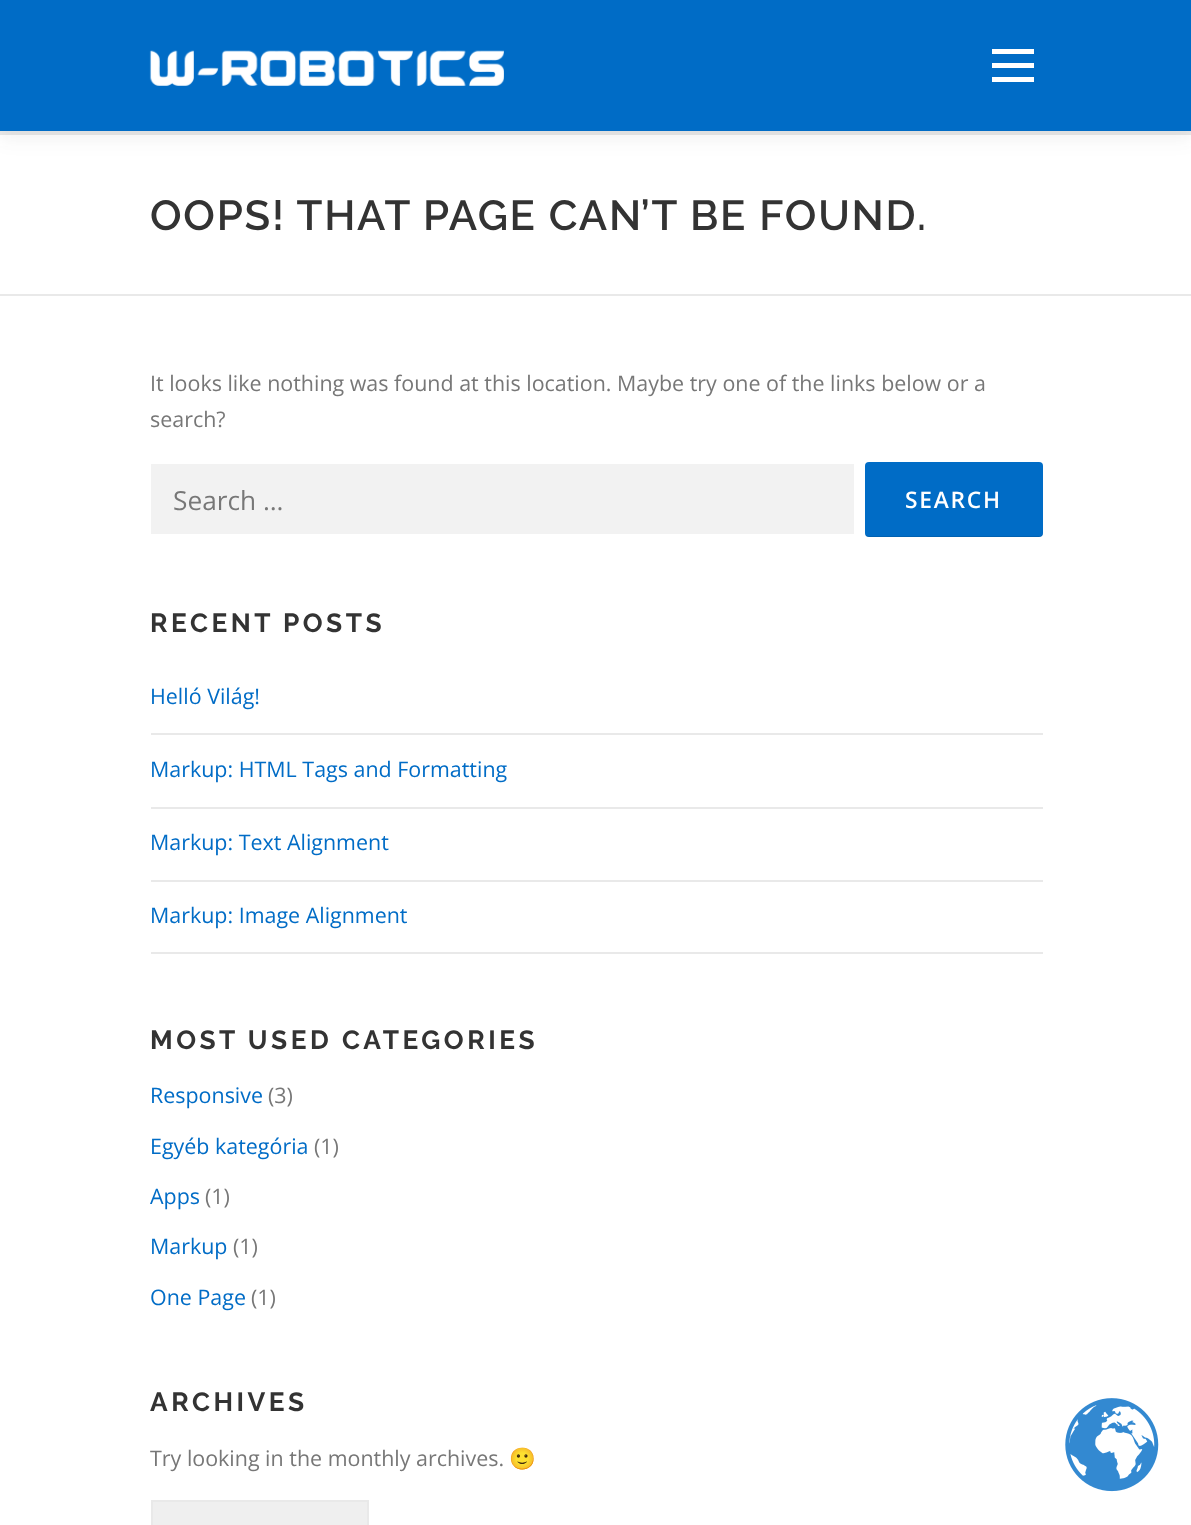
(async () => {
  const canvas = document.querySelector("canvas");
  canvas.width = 1191;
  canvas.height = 1525;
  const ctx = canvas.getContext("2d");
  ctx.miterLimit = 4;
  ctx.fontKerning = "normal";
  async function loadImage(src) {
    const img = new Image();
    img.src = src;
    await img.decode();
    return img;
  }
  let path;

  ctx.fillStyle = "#ffffff";
  ctx.fillRect(0, 0, 1191, 1525);
  ctx.fillStyle = "#e9e9e9";
  ctx.fillRect(0, 131, 1191, 4);
  ctx.fillStyle = "rgba(50, 50, 50, 0.06)";
  ctx.filter = "blur(9px)";
  ctx.beginPath();
  ctx.rect(0, 9, 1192, 131);
  ctx.fill();
  ctx.filter = "none";
  ctx.fillStyle = "#006cc6";
  ctx.fillRect(0, 0, 1191, 131);
  ctx.drawImage(await loadImage("img/1.png"), 149, 50, 355, 36);
  for (const [x, y, w, h, color] of [
    [992, 63, 42, 5, "#ffffff"],
    [992, 49, 42, 5, "#ffffff"],
    [992, 77, 42, 5, "#ffffff"],
    [0, 294, 1191, 2, "#e9e9e9"],
    [151, 464, 703, 70, "#f2f2f2"],
  ]) {
    ctx.fillStyle = color;
    ctx.fillRect(x, y, w, h);
  }
  ctx.fillStyle = "#006cc6";
  ctx.beginPath();
  ctx.roundRect(865, 462, 178, 75, 4);
  ctx.fill();
  ctx.fillStyle = "rgba(0, 0, 0, 0.1)";
  path = new Path2D("M866 535C866 536 868 537 869 537H1039C1041 537 1043 535 1043 533V532C1043 534 1041 536 1040 536H868Z");
  ctx.fill(path);
  for (const [x, y, w, h, color] of [
    [151, 733, 892, 2, "#e9e9e9"],
    [151, 807, 892, 2, "#e9e9e9"],
    [151, 880, 892, 2, "#e9e9e9"],
    [151, 952, 892, 2, "#e9e9e9"],
  ]) {
    ctx.fillStyle = color;
    ctx.fillRect(x, y, w, h);
  }
  ctx.fillStyle = "#efefef";
  ctx.beginPath();
  ctx.rect(152, 1501, 216, 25);
  ctx.fill();
  ctx.strokeStyle = "#e9e9e9";
  ctx.lineWidth = 2;
  ctx.stroke();
  ctx.drawImage(await loadImage("img/2.png"), 1065, 1398, 94, 94);
  ctx.letterSpacing = "1.75px";
  ctx.font = "600 42px Raleway";
  ctx.fillStyle = "#333333";
  ctx.fillText("OOPS! THAT PAGE CAN’T BE FOUND.", 150, 230);
  ctx.letterSpacing = "0px";
  ctx.font = "21.45px Open Sans";
  ctx.fillStyle = "#777777";
  ctx.fillText("It looks like nothing was found at this location. Maybe try one of the links below or a", 150, 391);
  ctx.fillText("search?", 150, 427);
  ctx.font = "26.25px Open Sans";
  ctx.fillText("Search …", 173, 510);
  ctx.letterSpacing = "1.75px";
  ctx.font = "600 22.75px Open Sans";
  ctx.fillStyle = "#ffffff";
  ctx.fillText("SEARCH", 905, 508);
  ctx.letterSpacing = "3.5px";
  ctx.font = "bold 26.25px Raleway";
  ctx.fillStyle = "#333333";
  ctx.fillText("RECENT POSTS", 150, 632);
  ctx.letterSpacing = "0px";
  ctx.font = "21.45px Open Sans";
  ctx.fillStyle = "#006cc6";
  for (const [text, x, y] of [
    ["Helló Világ!", 150, 704],
    ["Markup: HTML Tags and Formatting", 150, 777],
    ["Markup: Text Alignment", 150, 850],
    ["Markup: Image Alignment", 150, 923],
  ]) {
    ctx.fillText(text, x, y);
  }
  ctx.letterSpacing = "3.5px";
  ctx.font = "bold 26.25px Raleway";
  ctx.fillStyle = "#333333";
  ctx.fillText("MOST USED CATEGORIES", 150, 1049);
  ctx.letterSpacing = "0px";
  ctx.font = "21.45px Open Sans";
  ctx.fillStyle = "#006cc6";
  ctx.fillText("Responsive", 150, 1103);
  ctx.fillStyle = "#777777";
  ctx.fillText("(3)", 268, 1103);
  ctx.fillStyle = "#006cc6";
  ctx.fillText("Egyéb kategória", 150, 1154);
  ctx.fillStyle = "#777777";
  ctx.fillText("(1)", 314, 1154);
  ctx.fillStyle = "#006cc6";
  ctx.fillText("Apps", 150, 1204);
  ctx.fillStyle = "#777777";
  ctx.fillText("(1)", 205, 1204);
  ctx.fillStyle = "#006cc6";
  ctx.fillText("Markup", 150, 1254);
  ctx.fillStyle = "#777777";
  ctx.fillText("(1)", 233, 1254);
  ctx.fillStyle = "#006cc6";
  ctx.fillText("One Page", 150, 1305);
  ctx.fillStyle = "#777777";
  ctx.fillText("(1)", 251, 1305);
  ctx.letterSpacing = "3.5px";
  ctx.font = "bold 26.25px Raleway";
  ctx.fillStyle = "#333333";
  ctx.fillText("ARCHIVES", 150, 1411);
  ctx.letterSpacing = "0px";
  ctx.font = "21.45px Open Sans";
  ctx.fillStyle = "#777777";
  ctx.fillText("Try looking in the monthly archives.", 150, 1466);
  ctx.font = "21.45px Noto Color Emoji";
  ctx.fillText("🙂", 509, 1466);
})();
